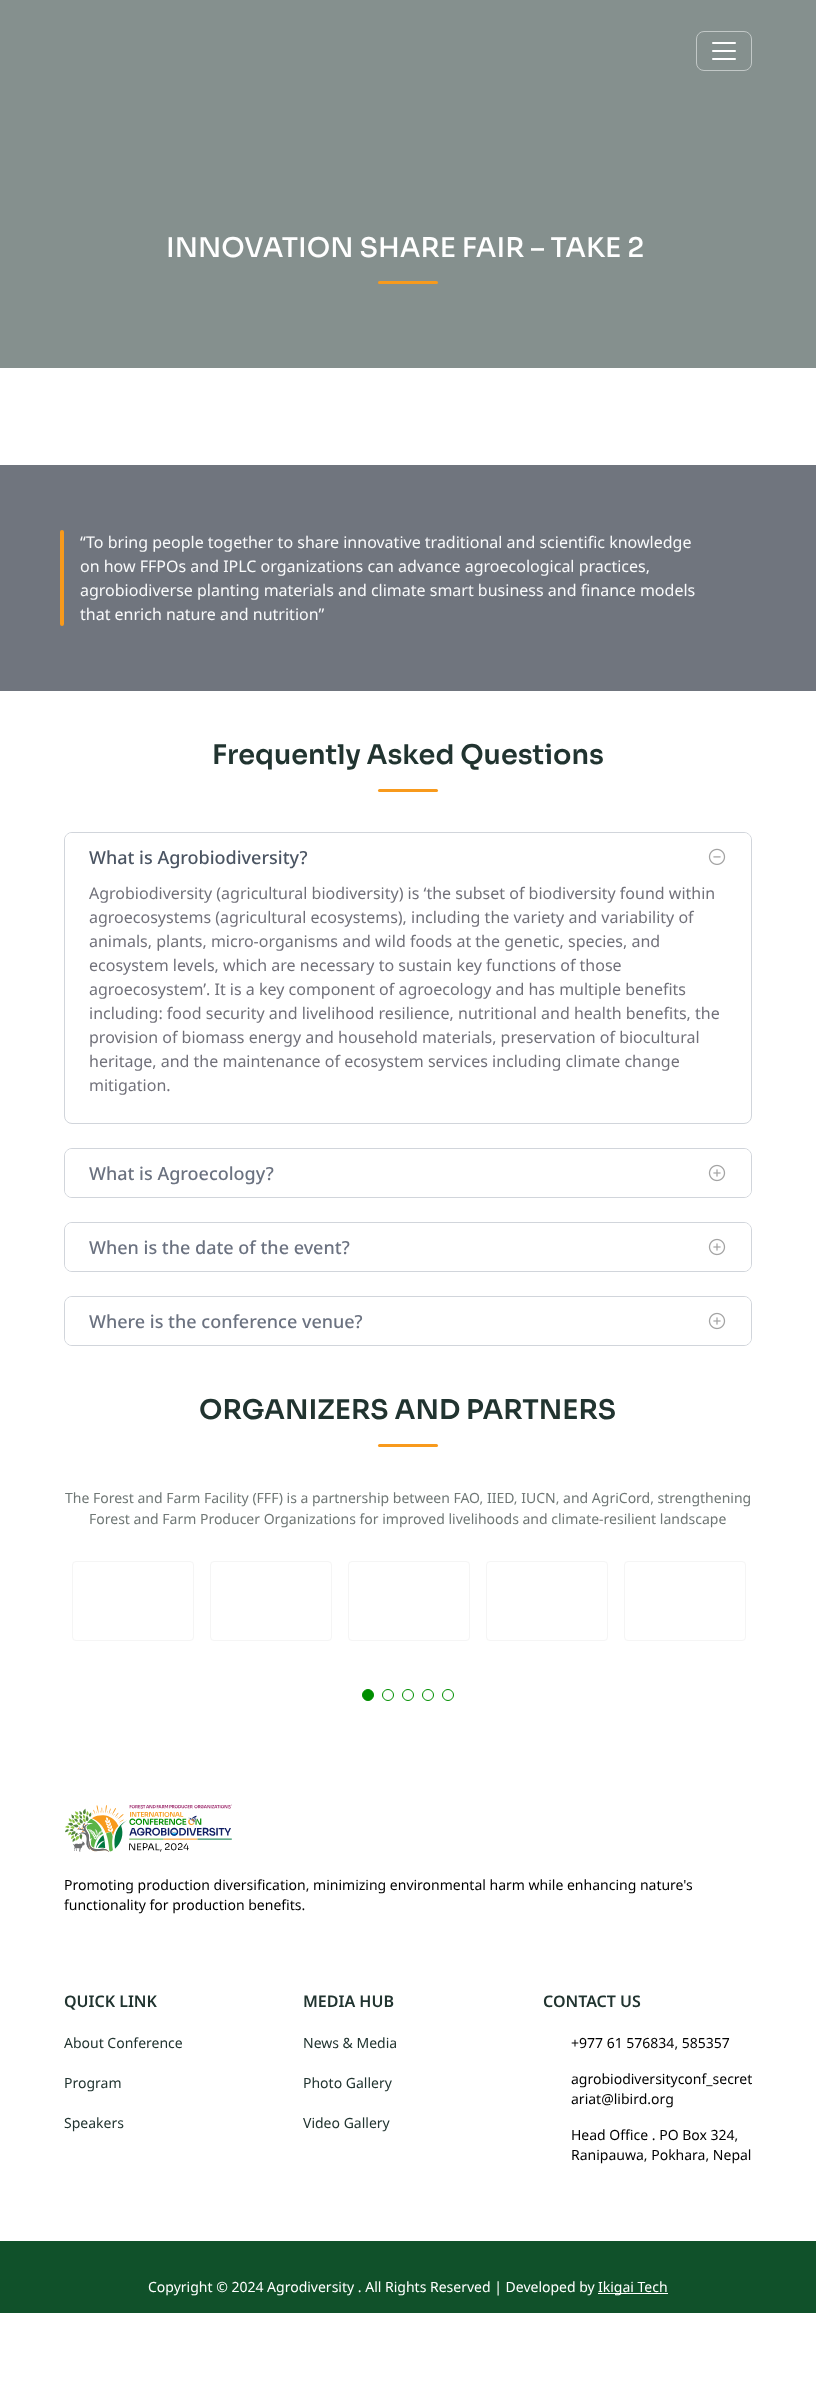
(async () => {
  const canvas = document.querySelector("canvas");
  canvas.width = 816;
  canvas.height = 2388;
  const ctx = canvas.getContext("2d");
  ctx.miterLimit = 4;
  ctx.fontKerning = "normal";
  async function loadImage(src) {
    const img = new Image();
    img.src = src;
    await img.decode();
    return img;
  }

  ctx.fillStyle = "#ffffff";
  ctx.fillRect(0, 0, 816, 2388);
  ctx.fillStyle = "#85908e";
  ctx.fillRect(0, 0, 816, 368);
  ctx.beginPath();
  ctx.roundRect(696.5, 31.5, 55, 39, 7.5);
  ctx.strokeStyle = "#c2c8c7";
  ctx.stroke();
  ctx.drawImage(await loadImage("img/1.png"), 712, 42, 24, 18);
  ctx.fillStyle = "#f89a1c";
  ctx.beginPath();
  ctx.roundRect(378, 281, 60, 3, 1.5);
  ctx.fill();
  ctx.fillStyle = "#70757e";
  ctx.fillRect(0, 465, 816, 226);
  ctx.fillStyle = "#f89a1c";
  ctx.beginPath();
  ctx.roundRect(60, 530, 4, 96, 2);
  ctx.fill();
  ctx.beginPath();
  ctx.roundRect(378, 789, 60, 3, 1.5);
  ctx.fill();
  ctx.beginPath();
  ctx.roundRect(64.5, 832.5, 687, 291, 7.5);
  ctx.strokeStyle = "#d1d5db";
  ctx.stroke();
  ctx.fillStyle = "#ffffff";
  ctx.beginPath();
  ctx.roundRect(65, 833, 686, 48, [7, 7, 0, 0]);
  ctx.fill();
  ctx.drawImage(await loadImage("img/2.png"), 708, 848, 18, 17);
  ctx.beginPath();
  ctx.roundRect(64.5, 1148.5, 687, 49, 7.5);
  ctx.stroke();
  ctx.beginPath();
  ctx.roundRect(65, 1149, 686, 48, 7);
  ctx.fill();
  ctx.drawImage(await loadImage("img/3.png"), 708, 1164, 18, 18);
  ctx.beginPath();
  ctx.roundRect(64.5, 1222.5, 687, 49, 7.5);
  ctx.stroke();
  ctx.beginPath();
  ctx.roundRect(65, 1223, 686, 48, 7);
  ctx.fill();
  ctx.drawImage(await loadImage("img/3.png"), 708, 1238, 18, 18);
  ctx.beginPath();
  ctx.roundRect(64.5, 1296.5, 687, 49, 7.5);
  ctx.stroke();
  ctx.beginPath();
  ctx.roundRect(65, 1297, 686, 48, 7);
  ctx.fill();
  ctx.drawImage(await loadImage("img/3.png"), 708, 1312, 18, 18);
  ctx.fillStyle = "#f89a1c";
  ctx.beginPath();
  ctx.roundRect(378, 1444, 60, 3, 1.5);
  ctx.fill();
  ctx.beginPath();
  ctx.roundRect(72.5, 1561.5, 121, 79, 3.5);
  ctx.strokeStyle = "#f5f5f5";
  ctx.stroke();
  ctx.beginPath();
  ctx.roundRect(210.5, 1561.5, 121, 79, 3.5);
  ctx.stroke();
  ctx.beginPath();
  ctx.roundRect(348.5, 1561.5, 121, 79, 3.5);
  ctx.stroke();
  ctx.beginPath();
  ctx.roundRect(486.5, 1561.5, 121, 79, 3.5);
  ctx.stroke();
  ctx.beginPath();
  ctx.roundRect(624.5, 1561.5, 121, 79, 3.5);
  ctx.stroke();
  ctx.fillStyle = "#008e00";
  ctx.beginPath();
  ctx.arc(368, 1695, 5.5, 0, Math.PI * 2);
  ctx.fill();
  ctx.strokeStyle = "#008e00";
  ctx.stroke();
  ctx.beginPath();
  ctx.arc(388, 1695, 5.5, 0, Math.PI * 2);
  ctx.stroke();
  ctx.beginPath();
  ctx.arc(408, 1695, 5.5, 0, Math.PI * 2);
  ctx.stroke();
  ctx.beginPath();
  ctx.arc(428, 1695, 5.5, 0, Math.PI * 2);
  ctx.stroke();
  ctx.beginPath();
  ctx.arc(448, 1695, 5.5, 0, Math.PI * 2);
  ctx.stroke();
  ctx.drawImage(await loadImage("img/4.png"), 65, 1804, 167, 48);
  ctx.fillStyle = "#10512a";
  ctx.fillRect(0, 2241, 816, 72);
  ctx.fillStyle = "#ffffff";
  ctx.fillRect(598, 2293, 70, 1);
  ctx.font = "500 27.1px Sora";
  ctx.fillText("INNOVATION SHARE FAIR – TAKE 2", 166, 257);
  ctx.font = "16px Noto Sans";
  ctx.fillStyle = "#f9fafb";
  for (const [text, x, y] of [
    ["“To bring people together to share innovative traditional and scientific knowledge", 80, 548],
    ["on how FFPOs and IPLC organizations can advance agroecological practices,", 80, 572],
    ["agrobiodiverse planting materials and climate smart business and finance models", 80, 596],
    ["that enrich nature and nutrition”", 80, 620],
  ]) {
    ctx.fillText(text, x, y);
  }
  ctx.font = "600 27.1px Sora";
  ctx.fillStyle = "#213430";
  ctx.fillText("Frequently Asked Questions", 212, 764);
  ctx.font = "500 18px Noto Sans";
  ctx.fillStyle = "#4b5563";
  ctx.fillText("What is Agrobiodiversity?", 89, 864);
  ctx.font = "16px Noto Sans";
  ctx.fillStyle = "#71717a";
  for (const [text, x, y] of [
    ["Agrobiodiversity (agricultural biodiversity) is ‘the subset of biodiversity found within", 89, 899],
    ["agroecosystems (agricultural ecosystems), including the variety and variability of", 89, 923],
    ["animals, plants, micro-organisms and wild foods at the genetic, species, and", 89, 947],
    ["ecosystem levels, which are necessary to sustain key functions of those", 89, 971],
    ["agroecosystem’. It is a key component of agroecology and has multiple benefits", 89, 995],
    ["including: food security and livelihood resilience, nutritional and health benefits, the", 89, 1019],
    ["provision of biomass energy and household materials, preservation of biocultural", 89, 1043],
    ["heritage, and the maintenance of ecosystem services including climate change", 89, 1067],
    ["mitigation.", 89, 1091],
  ]) {
    ctx.fillText(text, x, y);
  }
  ctx.font = "500 18px Noto Sans";
  ctx.fillStyle = "#6b7280";
  for (const [text, x, y] of [
    ["What is Agroecology?", 89, 1180],
    ["When is the date of the event?", 89, 1254],
    ["Where is the conference venue?", 89, 1328],
  ]) {
    ctx.fillText(text, x, y);
  }
  ctx.font = "600 27.1px Sora";
  ctx.fillStyle = "#213430";
  ctx.fillText("ORGANIZERS AND PARTNERS", 199, 1419);
  ctx.font = "14px Noto Sans";
  ctx.fillStyle = "#6f7775";
  ctx.fillText("The Forest and Farm Facility (FFF) is a partnership between FAO, IIED, IUCN, and AgriCord, strengthening", 65, 1503);
  ctx.fillText("Forest and Farm Producer Organizations for improved livelihoods and climate-resilient landscape", 89, 1524);
  ctx.fillStyle = "#000000";
  ctx.fillText("Promoting production diversification, minimizing environmental harm while enhancing nature's", 64, 1890);
  ctx.fillText("functionality for production benefits.", 64, 1910);
  ctx.font = "600 16px Noto Sans";
  ctx.fillStyle = "#213430";
  ctx.fillText("QUICK LINK", 64, 2007);
  ctx.font = "14px Noto Sans";
  for (const [text, x, y] of [
    ["About Conference", 64, 2048],
    ["Program", 64, 2088],
    ["Speakers", 64, 2128],
  ]) {
    ctx.fillText(text, x, y);
  }
  ctx.font = "600 16px Noto Sans";
  ctx.fillText("MEDIA HUB", 303, 2007);
  ctx.font = "14px Noto Sans";
  for (const [text, x, y] of [
    ["News & Media", 303, 2048],
    ["Photo Gallery", 303, 2088],
    ["Video Gallery", 303, 2128],
  ]) {
    ctx.fillText(text, x, y);
  }
  ctx.font = "600 16px Noto Sans";
  ctx.fillText("CONTACT US", 543, 2007);
  ctx.font = "14px Noto Sans";
  ctx.fillStyle = "#000000";
  for (const [text, x, y] of [
    ["+977 61 576834, 585357", 571, 2048],
    ["agrobiodiversityconf_secret", 571, 2084],
    ["ariat@libird.org", 571, 2104],
    ["Head Office . PO Box 324,", 571, 2140],
    ["Ranipauwa, Pokhara, Nepal", 571, 2160],
  ]) {
    ctx.fillText(text, x, y);
  }
  ctx.fillStyle = "#ffffff";
  ctx.fillText("Copyright © 2024 Agrodiversity . All Rights Reserved | Developed by", 148, 2292);
  ctx.fillText("Ikigai Tech", 598, 2292);
})();
